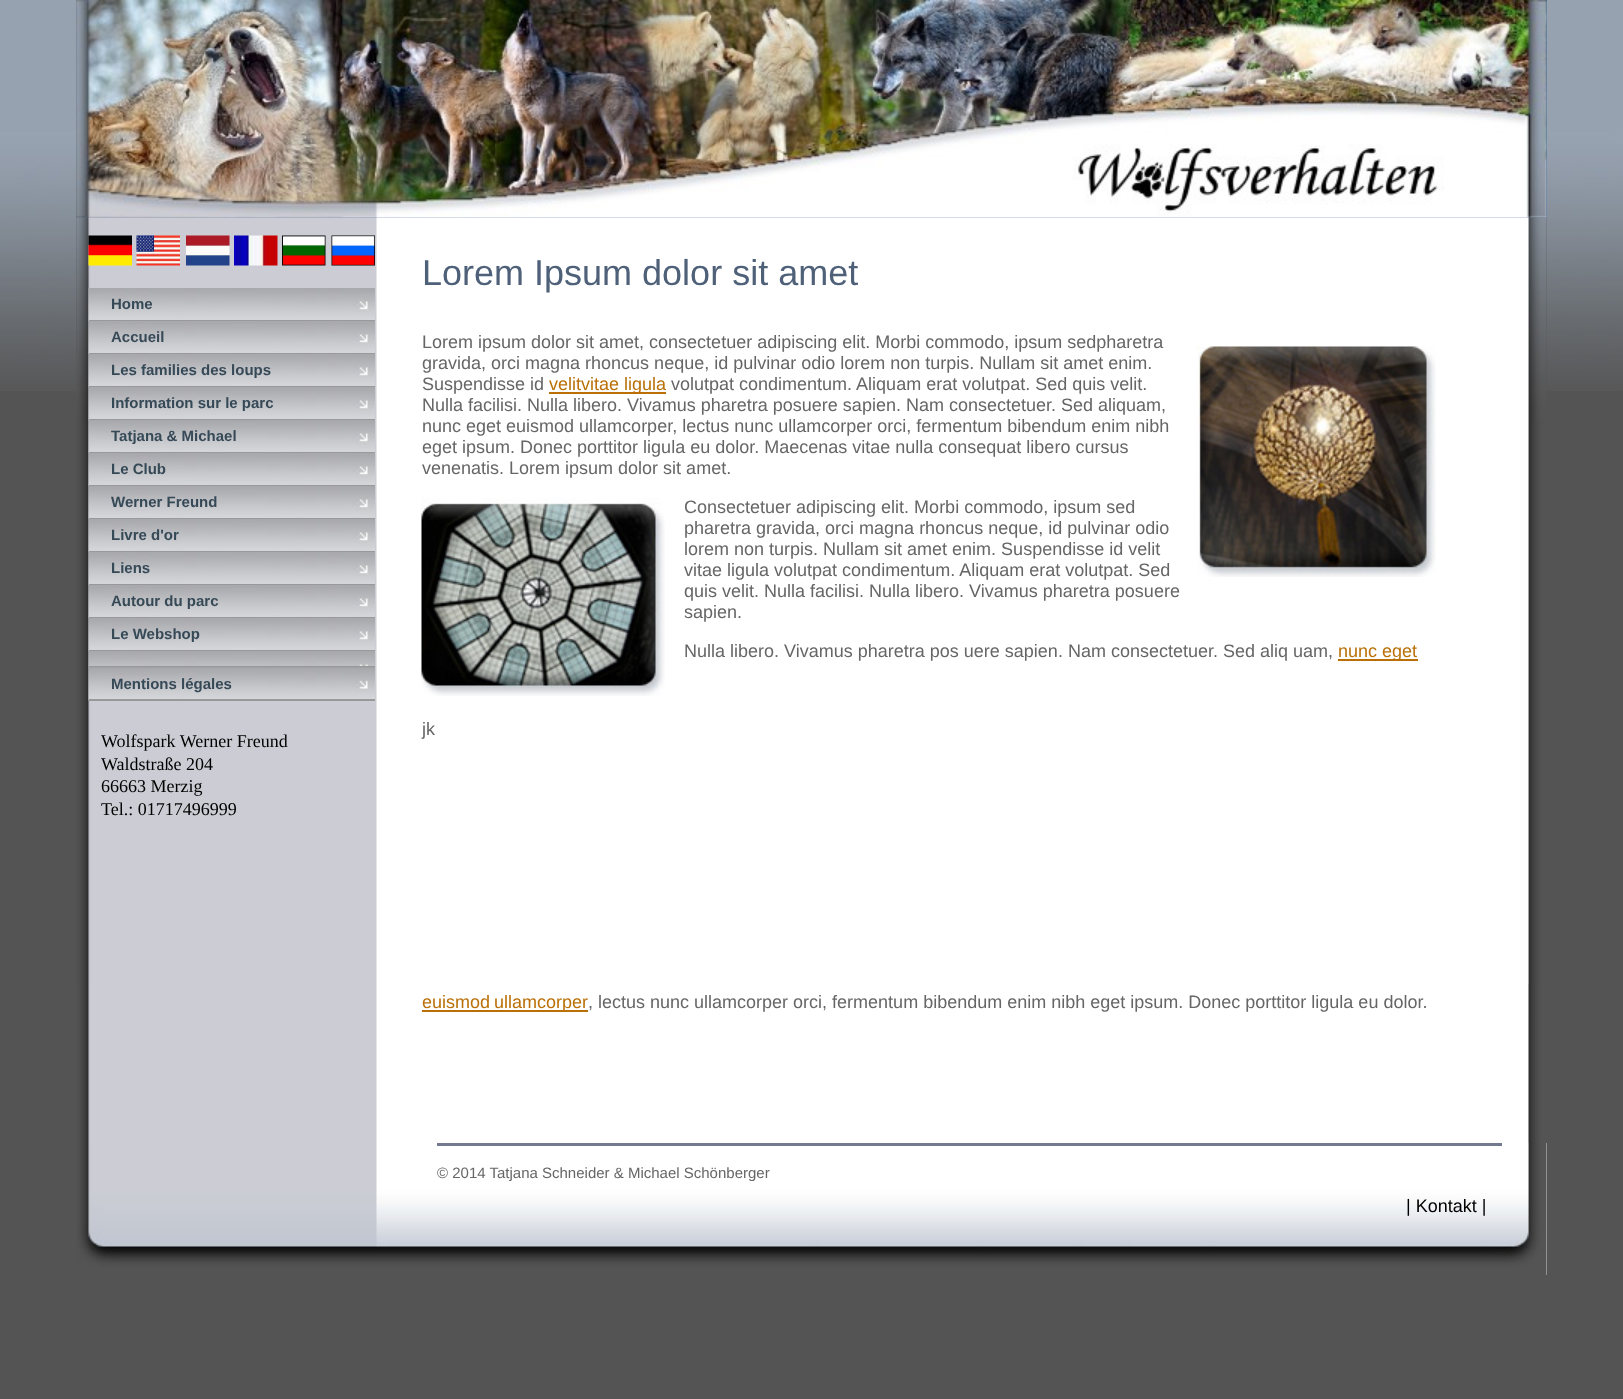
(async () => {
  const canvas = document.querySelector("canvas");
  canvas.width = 1623;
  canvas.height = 1399;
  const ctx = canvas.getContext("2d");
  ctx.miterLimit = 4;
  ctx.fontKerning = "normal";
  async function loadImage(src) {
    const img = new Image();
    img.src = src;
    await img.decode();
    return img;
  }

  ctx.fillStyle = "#545454";
  ctx.fillRect(0, 0, 1623, 1399);
  ctx.drawImage(await loadImage("img/1.png"), 0, 0, 1623, 391);
  ctx.drawImage(await loadImage("img/2.png"), 76, 0, 1471, 1275);
  ctx.fillStyle = "#4971a2";
  ctx.fillRect(77, 0, 1470, 218);
  ctx.drawImage(await loadImage("img/3.png"), 76, 0, 1471, 218);
  ctx.drawImage(await loadImage("img/16.png"), 76, 217, 1471, 767);
  ctx.drawImage(await loadImage("img/4.png"), 88, 235, 44, 31);
  ctx.drawImage(await loadImage("img/5.png"), 136, 235, 44, 31);
  ctx.drawImage(await loadImage("img/6.png"), 186, 235, 44, 31);
  ctx.drawImage(await loadImage("img/7.png"), 234, 235, 44, 31);
  ctx.drawImage(await loadImage("img/8.png"), 282, 235, 44, 31);
  ctx.drawImage(await loadImage("img/9.png"), 331, 235, 44, 31);
  ctx.drawImage(await loadImage("img/10.png"), 88, 288, 287, 33);
  ctx.fillStyle = "#999999";
  ctx.fillRect(89, 320, 286, 1);
  ctx.drawImage(await loadImage("img/11.png"), 88, 321, 287, 33);
  ctx.fillRect(89, 353, 286, 1);
  ctx.drawImage(await loadImage("img/12.png"), 88, 354, 287, 33);
  ctx.fillRect(89, 386, 286, 1);
  ctx.drawImage(await loadImage("img/13.png"), 88, 387, 287, 33);
  ctx.fillRect(89, 419, 286, 1);
  ctx.drawImage(await loadImage("img/13.png"), 88, 420, 287, 33);
  ctx.fillRect(89, 452, 286, 1);
  ctx.drawImage(await loadImage("img/13.png"), 88, 453, 287, 33);
  ctx.fillRect(89, 485, 286, 1);
  ctx.drawImage(await loadImage("img/13.png"), 88, 486, 287, 33);
  ctx.fillRect(89, 518, 286, 1);
  ctx.drawImage(await loadImage("img/13.png"), 88, 519, 287, 33);
  ctx.fillRect(89, 551, 286, 1);
  ctx.drawImage(await loadImage("img/13.png"), 88, 552, 287, 33);
  ctx.fillRect(89, 584, 286, 1);
  ctx.drawImage(await loadImage("img/13.png"), 88, 585, 287, 33);
  ctx.fillRect(89, 617, 286, 1);
  ctx.drawImage(await loadImage("img/13.png"), 88, 618, 287, 33);
  ctx.fillRect(89, 650, 286, 1);
  ctx.drawImage(await loadImage("img/14.png"), 88, 651, 287, 17);
  ctx.fillRect(89, 666, 286, 2);
  ctx.drawImage(await loadImage("img/15.png"), 88, 667, 287, 34);
  ctx.fillRect(89, 699, 286, 2);
  ctx.fillStyle = "#ba7007";
  ctx.fillRect(549, 392, 117, 2);
  ctx.drawImage(await loadImage("img/17.png"), 1197, 346, 239, 231);
  ctx.drawImage(await loadImage("img/18.png"), 421, 498, 244, 198);
  for (const [x, y, w, h, color] of [
    [1338, 659, 80, 2, "#ba7007"],
    [422, 1010, 166, 2, "#ba7007"],
    [1546, 1143, 1, 132, "#cfcfcf"],
  ]) {
    ctx.fillStyle = color;
    ctx.fillRect(x, y, w, h);
  }
  ctx.drawImage(await loadImage("img/19.png"), 77, 1143, 1470, 132);
  ctx.fillStyle = "#737a90";
  ctx.fillRect(437, 1143, 1065, 3);
  ctx.font = "bold 15px Liberation Sans";
  ctx.fillStyle = "#364957";
  for (const [text, x, y] of [
    ["Home", 111, 309],
    ["Accueil", 111, 342],
    ["Les families des loups", 111, 375],
    ["Information sur le parc", 111, 408],
    ["Tatjana & Michael", 111, 441],
    ["Le Club", 111, 474],
    ["Werner Freund", 111, 507],
    ["Livre d'or", 111, 540],
    ["Liens", 111, 573],
    ["Autour du parc", 111, 606],
    ["Le Webshop", 111, 639],
    ["Mentions légales", 111, 689],
  ]) {
    ctx.fillText(text, x, y);
  }
  ctx.font = "18px Liberation Serif";
  ctx.fillStyle = "#000000";
  for (const [text, x, y] of [
    ["Wolfspark Werner Freund", 101, 747],
    ["Waldstraße 204", 101, 770],
    ["66663 Merzig", 101, 792],
    ["Tel.: 01717496999", 101, 815],
  ]) {
    ctx.fillText(text, x, y);
  }
  ctx.font = "36px Liberation Sans";
  ctx.fillStyle = "#4f6179";
  ctx.fillText("Lorem Ipsum dolor sit amet", 422, 285);
  ctx.font = "18px Liberation Sans";
  ctx.fillStyle = "#666666";
  for (const [text, x, y] of [
    ["Lorem ipsum dolor sit amet, consectetuer adipiscing elit. Morbi commodo, ipsum sedpharetra", 422, 348],
    ["gravida, orci magna rhoncus neque, id pulvinar odio lorem non turpis. Nullam sit amet enim.", 422, 369],
    ["Suspendisse id", 422, 390],
  ]) {
    ctx.fillText(text, x, y);
  }
  ctx.fillStyle = "#ba7007";
  ctx.fillText("velitvitae ligula", 549, 390);
  ctx.fillStyle = "#666666";
  for (const [text, x, y] of [
    ["volutpat condimentum. Aliquam erat volutpat. Sed quis velit.", 671, 390],
    ["Nulla facilisi. Nulla libero. Vivamus pharetra posuere sapien. Nam consectetuer. Sed aliquam,", 422, 411],
    ["nunc eget euismod ullamcorper, lectus nunc ullamcorper orci, fermentum bibendum enim nibh", 422, 432],
    ["eget ipsum. Donec porttitor ligula eu dolor. Maecenas vitae nulla consequat libero cursus", 422, 453],
    ["venenatis. Lorem ipsum dolor sit amet.", 422, 474],
    ["Consectetuer adipiscing elit. Morbi commodo, ipsum sed", 684, 513],
    ["pharetra gravida, orci magna rhoncus neque, id pulvinar odio", 684, 534],
    ["lorem non turpis. Nullam sit amet enim. Suspendisse id velit", 684, 555],
    ["vitae ligula volutpat condimentum. Aliquam erat volutpat. Sed", 684, 576],
    ["quis velit. Nulla facilisi. Nulla libero. Vivamus pharetra posuere", 684, 597],
    ["sapien.", 684, 618],
    ["Nulla libero. Vivamus pharetra pos uere sapien. Nam consectetuer. Sed aliq uam,", 684, 657],
  ]) {
    ctx.fillText(text, x, y);
  }
  ctx.fillStyle = "#ba7007";
  ctx.fillText("nunc eget", 1338, 657);
  ctx.fillStyle = "#666666";
  ctx.fillText("jk", 422, 735);
  ctx.wordSpacing = "-1px";
  ctx.fillStyle = "#ba7007";
  ctx.fillText("euismod ullamcorper", 422, 1008);
  ctx.wordSpacing = "0px";
  ctx.fillStyle = "#666666";
  ctx.fillText(", lectus nunc ullamcorper orci, fermentum bibendum enim nibh eget ipsum. Donec porttitor ligula eu dolor.", 588, 1008);
  ctx.font = "15px Liberation Sans";
  ctx.fillText("© 2014 Tatjana Schneider & Michael Schönberger", 437, 1178);
  ctx.font = "18px Liberation Sans";
  ctx.fillStyle = "#000000";
  ctx.fillText("| Kontakt |", 1406, 1212);
})();
